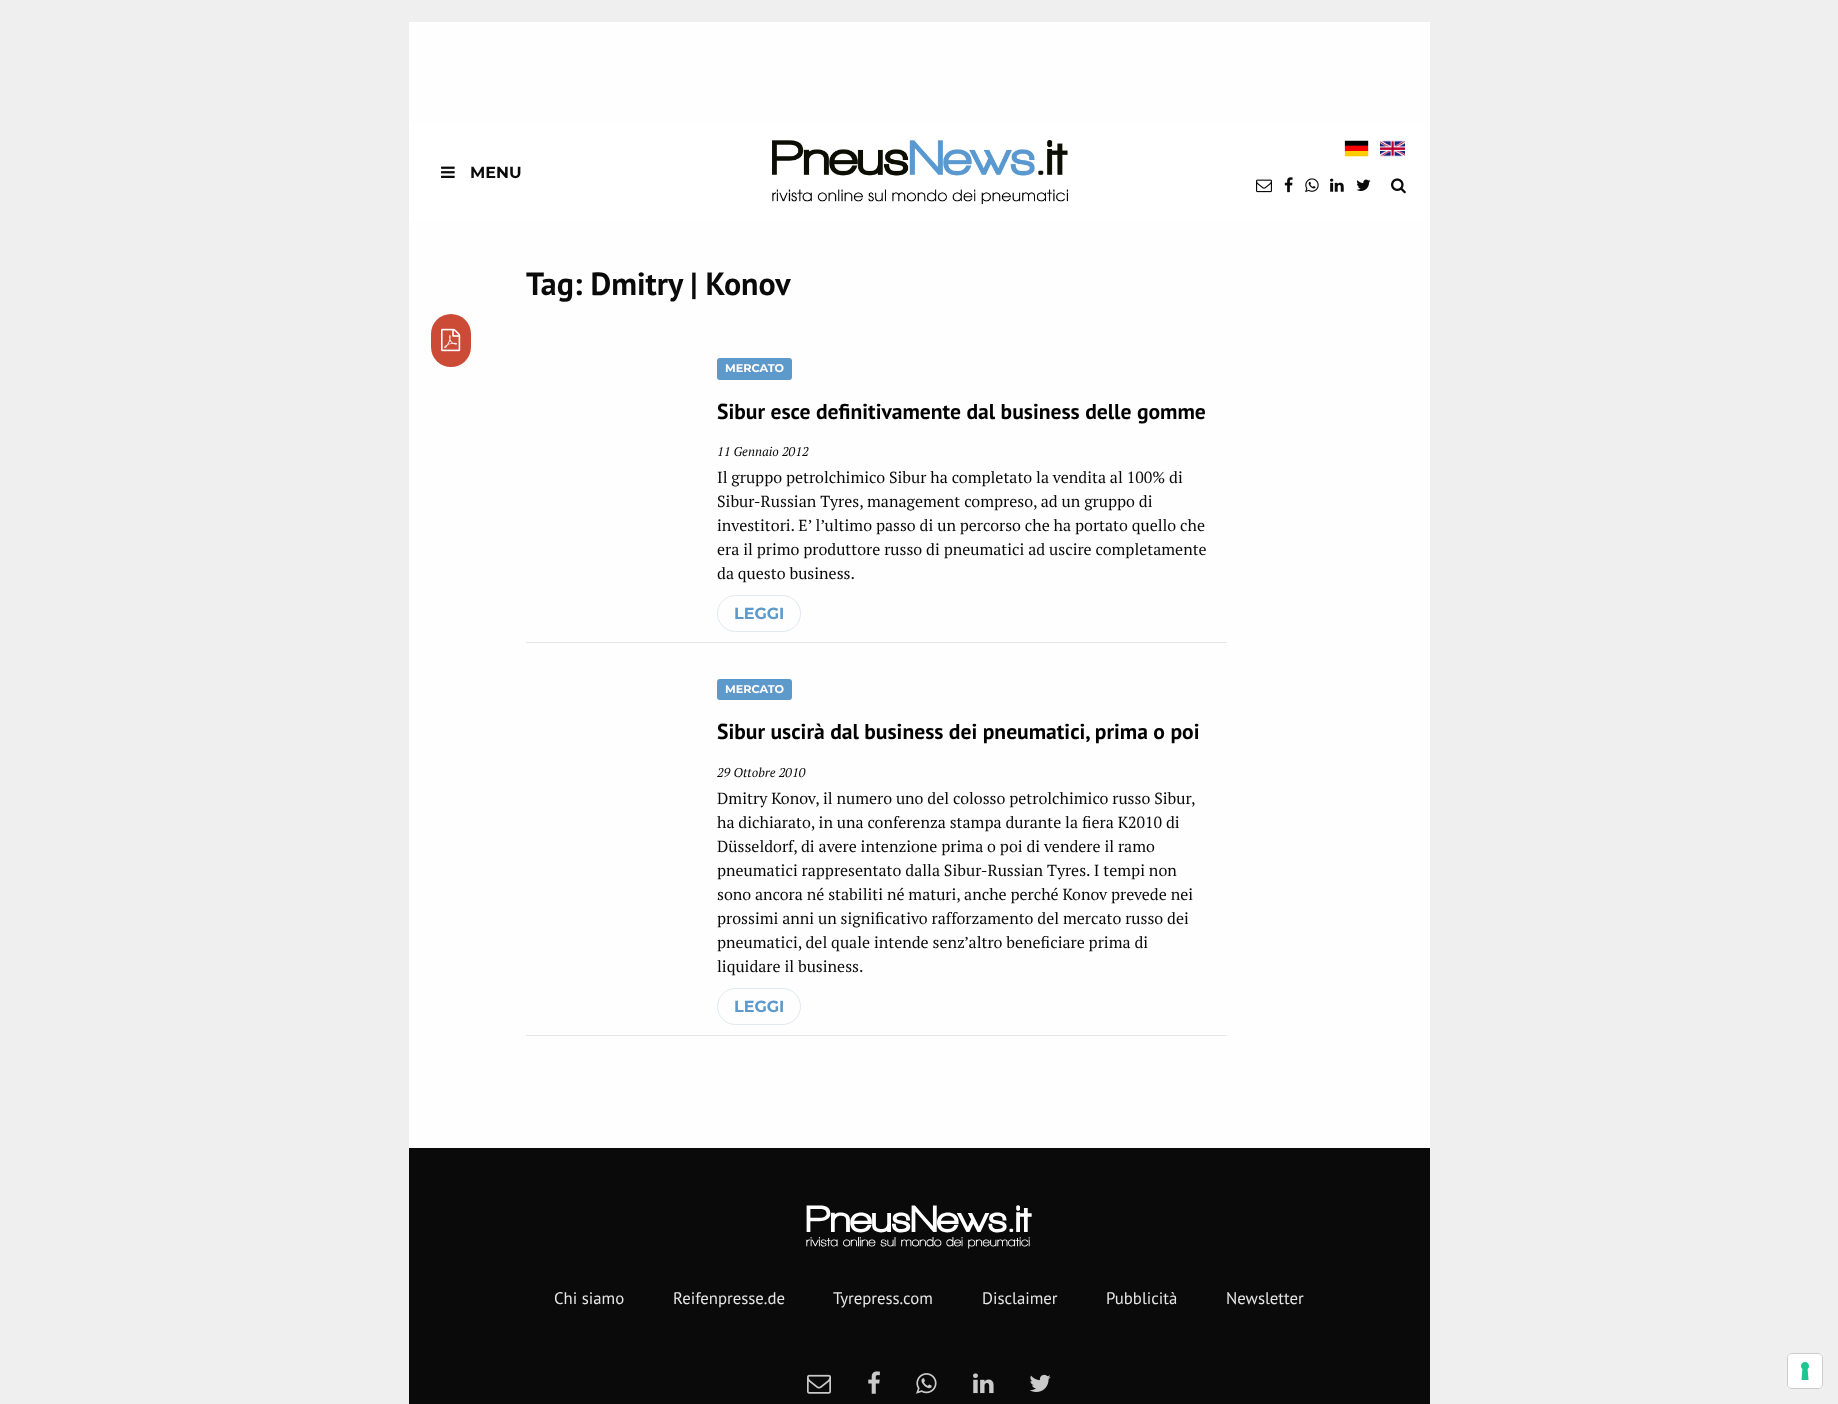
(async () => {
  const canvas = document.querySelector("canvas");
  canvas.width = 1838;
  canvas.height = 1404;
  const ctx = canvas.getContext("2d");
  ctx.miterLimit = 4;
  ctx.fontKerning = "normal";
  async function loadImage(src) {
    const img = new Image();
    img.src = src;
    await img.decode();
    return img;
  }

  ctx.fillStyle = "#efefef";
  ctx.fillRect(0, 0, 1838, 1404);
  ctx.fillStyle = "#fefefe";
  ctx.fillRect(409, 22, 1021, 100);
  ctx.fillStyle = "#ffffff";
  ctx.fillRect(409, 122, 1021, 100);
  ctx.drawImage(await loadImage("img/1.png"), 441, 166, 14, 12);
  ctx.drawImage(await loadImage("img/2.png"), 772, 140, 297, 65);
  ctx.drawImage(await loadImage("img/3.png"), 1344, 140, 25, 17);
  ctx.drawImage(await loadImage("img/4.png"), 1380, 140, 25, 17);
  ctx.drawImage(await loadImage("img/5.png"), 1256, 179, 16, 14);
  ctx.drawImage(await loadImage("img/6.png"), 1284, 177, 9, 16);
  ctx.drawImage(await loadImage("img/7.png"), 1305, 178, 14, 15);
  ctx.drawImage(await loadImage("img/8.png"), 1330, 178, 14, 14);
  ctx.drawImage(await loadImage("img/9.png"), 1356, 179, 15, 12);
  ctx.drawImage(await loadImage("img/10.png"), 1391, 178, 15, 16);
  ctx.fillStyle = "#fefefe";
  ctx.fillRect(409, 222, 1021, 926);
  ctx.fillStyle = "#cc4b37";
  ctx.beginPath();
  ctx.roundRect(431, 314, 40, 53, 20);
  ctx.fill();
  ctx.drawImage(await loadImage("img/11.png"), 441, 328, 20, 24);
  ctx.fillStyle = "#e6e6e6";
  ctx.fillRect(526, 642, 701, 1);
  ctx.fillStyle = "#5e99cc";
  ctx.beginPath();
  ctx.roundRect(717, 358, 75, 22, 3);
  ctx.fill();
  ctx.beginPath();
  ctx.roundRect(717.5, 595.5, 83, 36, 18);
  ctx.strokeStyle = "#e2e8f0";
  ctx.stroke();
  ctx.fillStyle = "#e6e6e6";
  ctx.fillRect(526, 1035, 701, 1);
  ctx.fillStyle = "#5e99cc";
  ctx.beginPath();
  ctx.roundRect(717, 679, 75, 21, 3);
  ctx.fill();
  ctx.beginPath();
  ctx.roundRect(717.5, 988.5, 83, 36, 18);
  ctx.stroke();
  ctx.fillStyle = "#0a0a0a";
  ctx.fillRect(409, 1148, 1021, 256);
  ctx.drawImage(await loadImage("img/12.png"), 806, 1205, 226, 44);
  ctx.drawImage(await loadImage("img/13.png"), 807, 1374, 24, 20);
  ctx.drawImage(await loadImage("img/14.png"), 868, 1371, 12, 23);
  ctx.drawImage(await loadImage("img/15.png"), 916, 1373, 21, 21);
  ctx.drawImage(await loadImage("img/16.png"), 973, 1373, 21, 21);
  ctx.drawImage(await loadImage("img/17.png"), 1029, 1374, 22, 18);
  ctx.beginPath();
  ctx.roundRect(1787.5, 1353.5, 35, 35, 4.5);
  ctx.strokeStyle = "#cbcbcb";
  ctx.stroke();
  ctx.fillStyle = "#ffffff";
  ctx.beginPath();
  ctx.roundRect(1788, 1354, 34, 34, 4);
  ctx.fill();
  ctx.drawImage(await loadImage("img/18.png"), 1801, 1362, 8, 18);
  ctx.font = "100 16px Montserrat";
  ctx.fillStyle = "#0a0a0a";
  ctx.fillText("MENU", 470, 178);
  ctx.font = "bold 32px PT Sans";
  ctx.fillText("Tag: Dmitry | Konov", 526, 295);
  ctx.font = "100 11.25px Montserrat";
  ctx.fillStyle = "#fefefe";
  ctx.fillText("MERCATO", 725, 372);
  ctx.font = "bold 21.6px PT Sans";
  ctx.fillStyle = "#000000";
  ctx.fillText("Sibur esce definitivamente dal business delle gomme", 717, 419);
  ctx.font = "italic 12.75px PT Serif";
  ctx.fillStyle = "#0a0a0a";
  ctx.fillText("11 Gennaio 2012", 717, 456);
  ctx.font = "16px PT Serif";
  for (const [text, x, y] of [
    ["Il gruppo petrolchimico Sibur ha completato la vendita al 100% di", 717, 483],
    ["Sibur-Russian Tyres, management compreso, ad un gruppo di", 717, 507],
    ["investitori. E’ l’ultimo passo di un percorso che ha portato quello che", 717, 531],
    ["era il primo produttore russo di pneumatici ad uscire completamente", 717, 555],
    ["da questo business.", 717, 579],
  ]) {
    ctx.fillText(text, x, y);
  }
  ctx.font = "100 16px Montserrat";
  ctx.fillStyle = "#5e99cc";
  ctx.fillText("LEGGI", 734, 619);
  ctx.font = "100 11.25px Montserrat";
  ctx.fillStyle = "#fefefe";
  ctx.fillText("MERCATO", 725, 693);
  ctx.font = "bold 21.6px PT Sans";
  ctx.fillStyle = "#000000";
  ctx.fillText("Sibur uscirà dal business dei pneumatici, prima o poi", 717, 739);
  ctx.font = "italic 12.75px PT Serif";
  ctx.fillStyle = "#0a0a0a";
  ctx.fillText("29 Ottobre 2010", 717, 777);
  ctx.font = "16px PT Serif";
  for (const [text, x, y] of [
    ["Dmitry Konov, il numero uno del colosso petrolchimico russo Sibur,", 717, 804],
    ["ha dichiarato, in una conferenza stampa durante la fiera K2010 di", 717, 828],
    ["Düsseldorf, di avere intenzione prima o poi di vendere il ramo", 717, 852],
    ["pneumatici rappresentato dalla Sibur-Russian Tyres. I tempi non", 717, 876],
    ["sono ancora né stabiliti né maturi, anche perché Konov prevede nei", 717, 900],
    ["prossimi anni un significativo rafforzamento del mercato russo dei", 717, 924],
    ["pneumatici, del quale intende senz’altro beneficiare prima di", 717, 948],
    ["liquidare il business.", 717, 972],
  ]) {
    ctx.fillText(text, x, y);
  }
  ctx.font = "100 16px Montserrat";
  ctx.fillStyle = "#5e99cc";
  ctx.fillText("LEGGI", 734, 1012);
  ctx.font = "16.75px PT Sans";
  ctx.fillStyle = "#e6e6e6";
  for (const [text, x, y] of [
    ["Chi siamo", 554, 1304],
    ["Reifenpresse.de", 673, 1304],
    ["Tyrepress.com", 833, 1304],
    ["Disclaimer", 982, 1304],
    ["Pubblicità", 1106, 1304],
    ["Newsletter", 1226, 1304],
  ]) {
    ctx.fillText(text, x, y);
  }
})();
